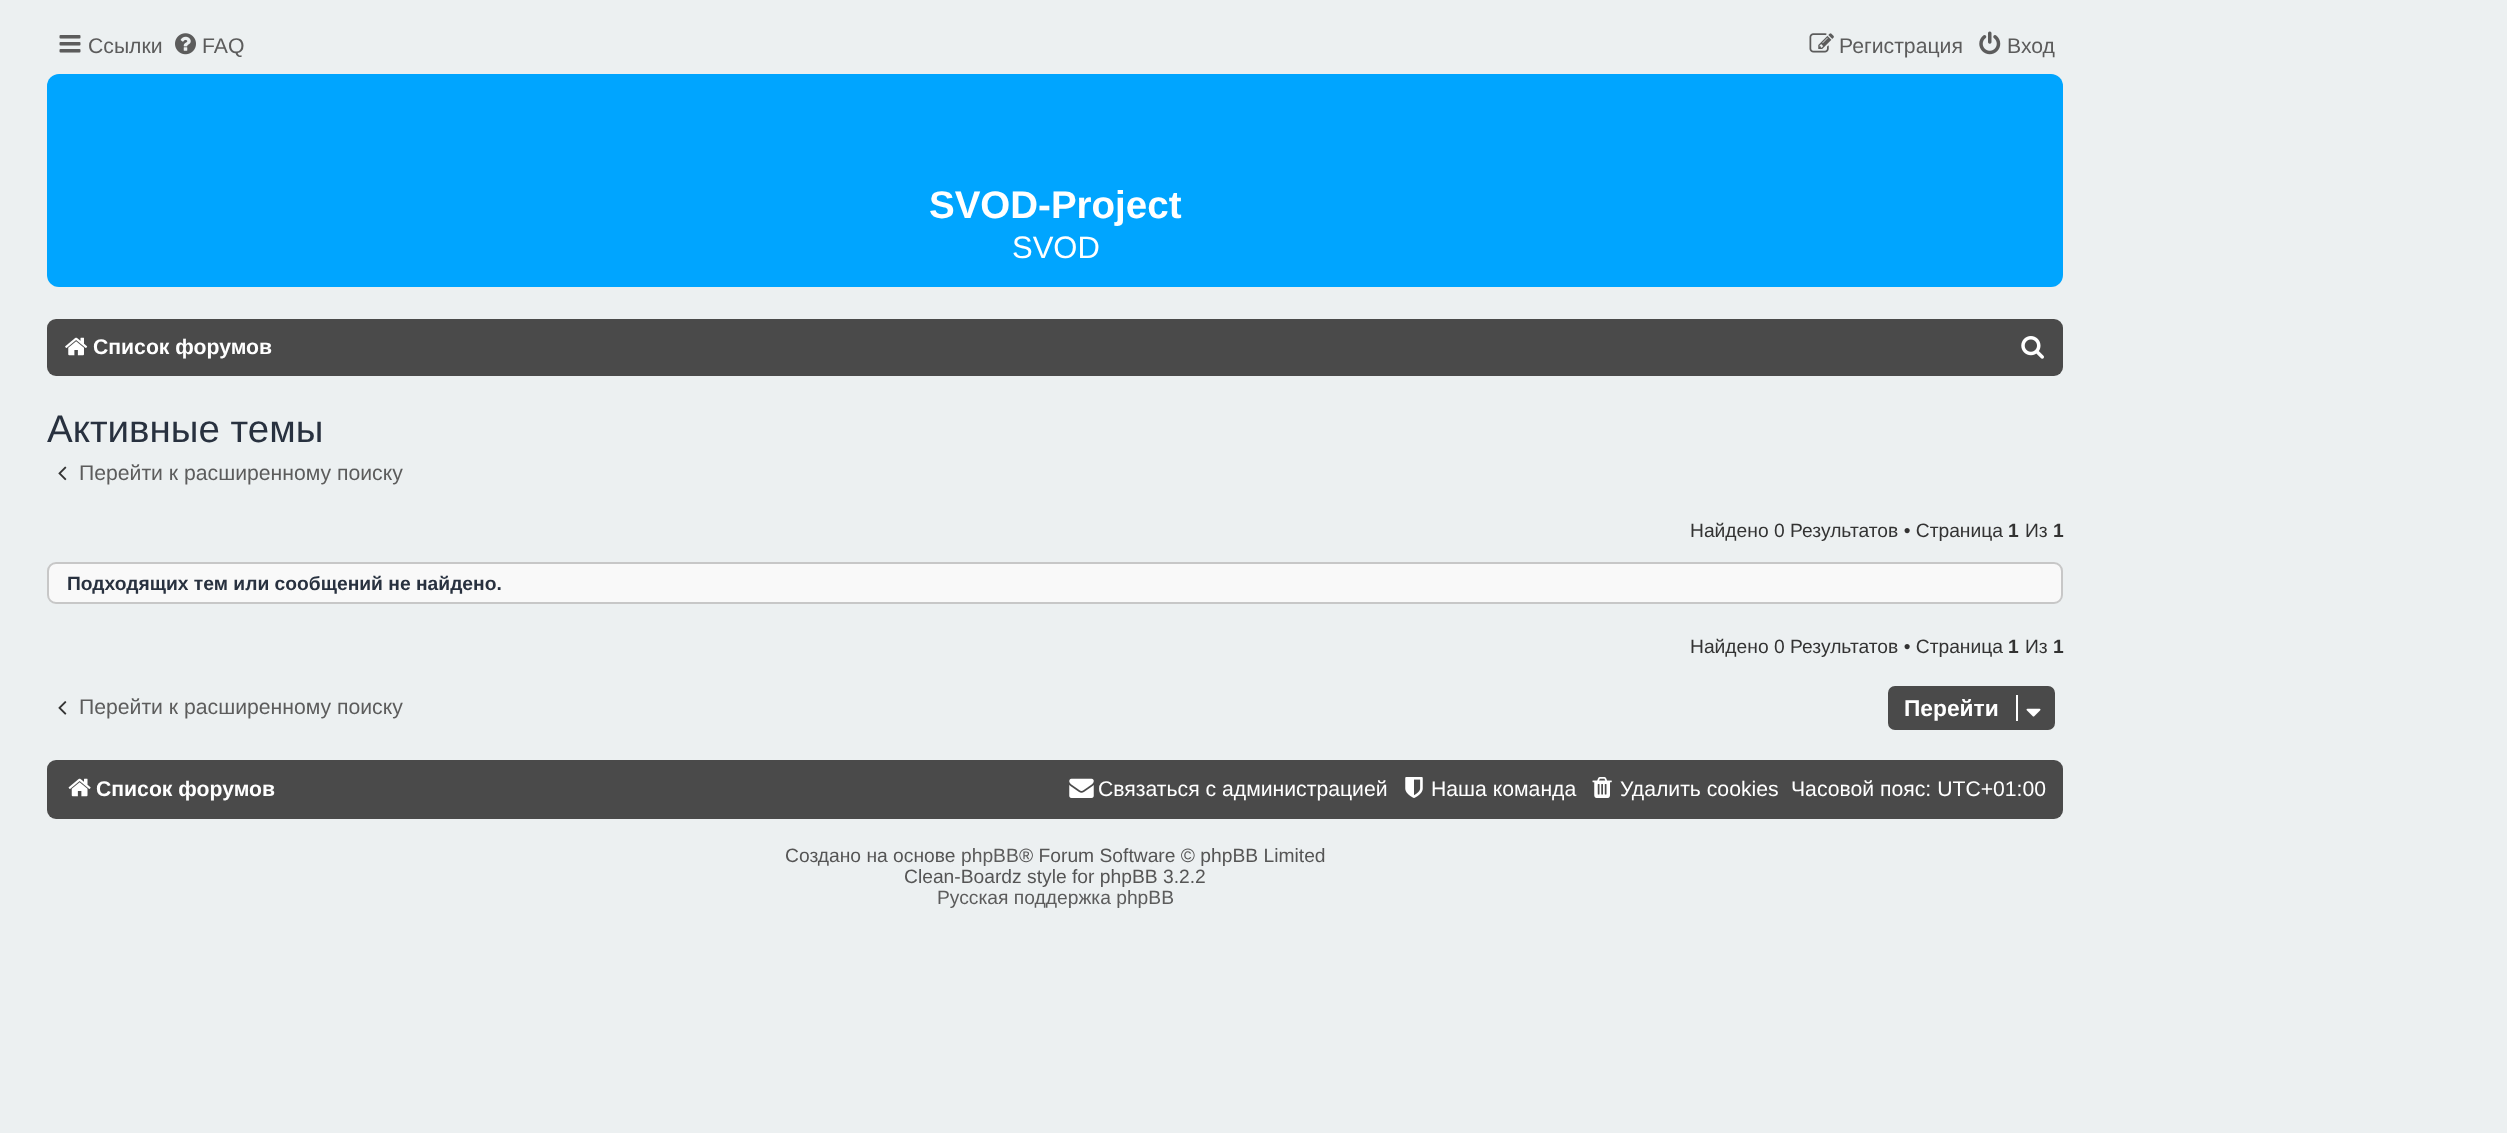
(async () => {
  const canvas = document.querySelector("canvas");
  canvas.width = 2507;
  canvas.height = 1133;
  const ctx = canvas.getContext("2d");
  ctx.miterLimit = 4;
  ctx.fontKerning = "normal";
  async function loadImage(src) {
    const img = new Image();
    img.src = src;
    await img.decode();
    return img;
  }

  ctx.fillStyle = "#ecf0f1";
  ctx.fillRect(0, 0, 2507, 1133);
  ctx.drawImage(await loadImage("img/1.png"), 59, 35, 22, 18);
  ctx.drawImage(await loadImage("img/2.png"), 175, 33, 21, 22);
  ctx.drawImage(await loadImage("img/3.png"), 1809, 33, 25, 20);
  ctx.drawImage(await loadImage("img/4.png"), 1979, 31, 22, 24);
  ctx.fillStyle = "#00a5ff";
  ctx.beginPath();
  ctx.roundRect(47, 74, 2016, 213, 12);
  ctx.fill();
  ctx.fillStyle = "#4a4a4a";
  ctx.beginPath();
  ctx.roundRect(47, 319, 2016, 57, 9);
  ctx.fill();
  ctx.drawImage(await loadImage("img/5.png"), 65, 337, 23, 19);
  ctx.drawImage(await loadImage("img/6.png"), 2021, 336, 23, 23);
  ctx.drawImage(await loadImage("img/7.png"), 58, 466, 9, 15);
  ctx.fillStyle = "#f9f9f9";
  ctx.beginPath();
  ctx.roundRect(48, 563, 2014, 40, 8);
  ctx.fill();
  ctx.strokeStyle = "#c7c7c7";
  ctx.lineWidth = 2;
  ctx.stroke();
  ctx.drawImage(await loadImage("img/8.png"), 58, 701, 9, 14);
  ctx.fillStyle = "#4a4a4a";
  ctx.beginPath();
  ctx.roundRect(1889, 687, 165, 42, 6);
  ctx.fill();
  ctx.strokeStyle = "#4a4a4a";
  ctx.stroke();
  ctx.fillStyle = "#ffffff";
  ctx.fillRect(2016, 695, 2, 26);
  ctx.drawImage(await loadImage("img/9.png"), 2026, 708, 15, 9);
  ctx.fillStyle = "#4a4a4a";
  ctx.beginPath();
  ctx.roundRect(47, 760, 2016, 59, 9);
  ctx.fill();
  ctx.drawImage(await loadImage("img/10.png"), 68, 778, 23, 19);
  ctx.drawImage(await loadImage("img/11.png"), 1069, 778, 25, 20);
  ctx.drawImage(await loadImage("img/12.png"), 1405, 777, 18, 21);
  ctx.drawImage(await loadImage("img/13.png"), 1592, 777, 20, 21);
  ctx.font = "21.2px Liberation Sans";
  ctx.fillStyle = "#5c5c5c";
  for (const [text, x, y] of [
    ["Ссылки", 88, 53],
    ["FAQ", 202, 53],
    ["Регистрация", 1839, 53],
    ["Вход", 2007, 53],
  ]) {
    ctx.fillText(text, x, y);
  }
  ctx.font = "bold 38.5px Liberation Sans";
  ctx.fillStyle = "#ffffff";
  ctx.fillText("SVOD-Project", 929, 218);
  ctx.font = "31px Liberation Sans";
  ctx.fillText("SVOD", 1012, 258);
  ctx.font = "bold 21.2px Liberation Sans";
  ctx.fillText("Список форумов", 93, 354);
  ctx.font = "38.5px Liberation Sans";
  ctx.fillStyle = "#28313f";
  ctx.fillText("Активные темы", 47, 442);
  ctx.font = "21.2px Liberation Sans";
  ctx.fillStyle = "#5c5c5c";
  ctx.fillText("Перейти к расширенному поиску", 79, 480);
  ctx.font = "19.25px Liberation Sans";
  ctx.fillStyle = "#333333";
  ctx.fillText("Найдено 0 Результатов • Страница", 1690, 537);
  ctx.font = "bold 19.25px Liberation Sans";
  ctx.fillText("1", 2008, 537);
  ctx.font = "19.25px Liberation Sans";
  ctx.fillText("Из", 2025, 537);
  ctx.font = "bold 19.25px Liberation Sans";
  ctx.fillText("1", 2053, 537);
  ctx.fillStyle = "#28313f";
  ctx.fillText("Подходящих тем или сообщений не найдено.", 67, 590);
  ctx.font = "19.25px Liberation Sans";
  ctx.fillStyle = "#333333";
  ctx.fillText("Найдено 0 Результатов • Страница", 1690, 653);
  ctx.font = "bold 19.25px Liberation Sans";
  ctx.fillText("1", 2008, 653);
  ctx.font = "19.25px Liberation Sans";
  ctx.fillText("Из", 2025, 653);
  ctx.font = "bold 19.25px Liberation Sans";
  ctx.fillText("1", 2053, 653);
  ctx.font = "21.2px Liberation Sans";
  ctx.fillStyle = "#5c5c5c";
  ctx.fillText("Перейти к расширенному поиску", 79, 714);
  ctx.font = "bold 22.75px Liberation Sans";
  ctx.fillStyle = "#ffffff";
  ctx.fillText("Перейти", 1904, 716);
  ctx.font = "bold 21.2px Liberation Sans";
  ctx.fillText("Список форумов", 96, 796);
  ctx.font = "21.2px Liberation Sans";
  for (const [text, x, y] of [
    ["Связаться с администрацией", 1098, 796],
    ["Наша команда", 1431, 796],
    ["Удалить cookies", 1620, 796],
    ["Часовой пояс: UTC+01:00", 1791, 796],
  ]) {
    ctx.fillText(text, x, y);
  }
  ctx.font = "19.25px Liberation Sans";
  ctx.fillStyle = "#555555";
  ctx.fillText("Создано на основе", 785, 862);
  ctx.fillStyle = "#5c5c5c";
  ctx.fillText("phpBB", 961, 862);
  ctx.fillStyle = "#555555";
  ctx.fillText("® Forum Software © phpBB Limited", 1019, 862);
  ctx.fillText("Clean-Boardz style for phpBB 3.2.2", 904, 883);
  ctx.fillStyle = "#5c5c5c";
  ctx.fillText("Русская поддержка phpBB", 937, 904);
})();
